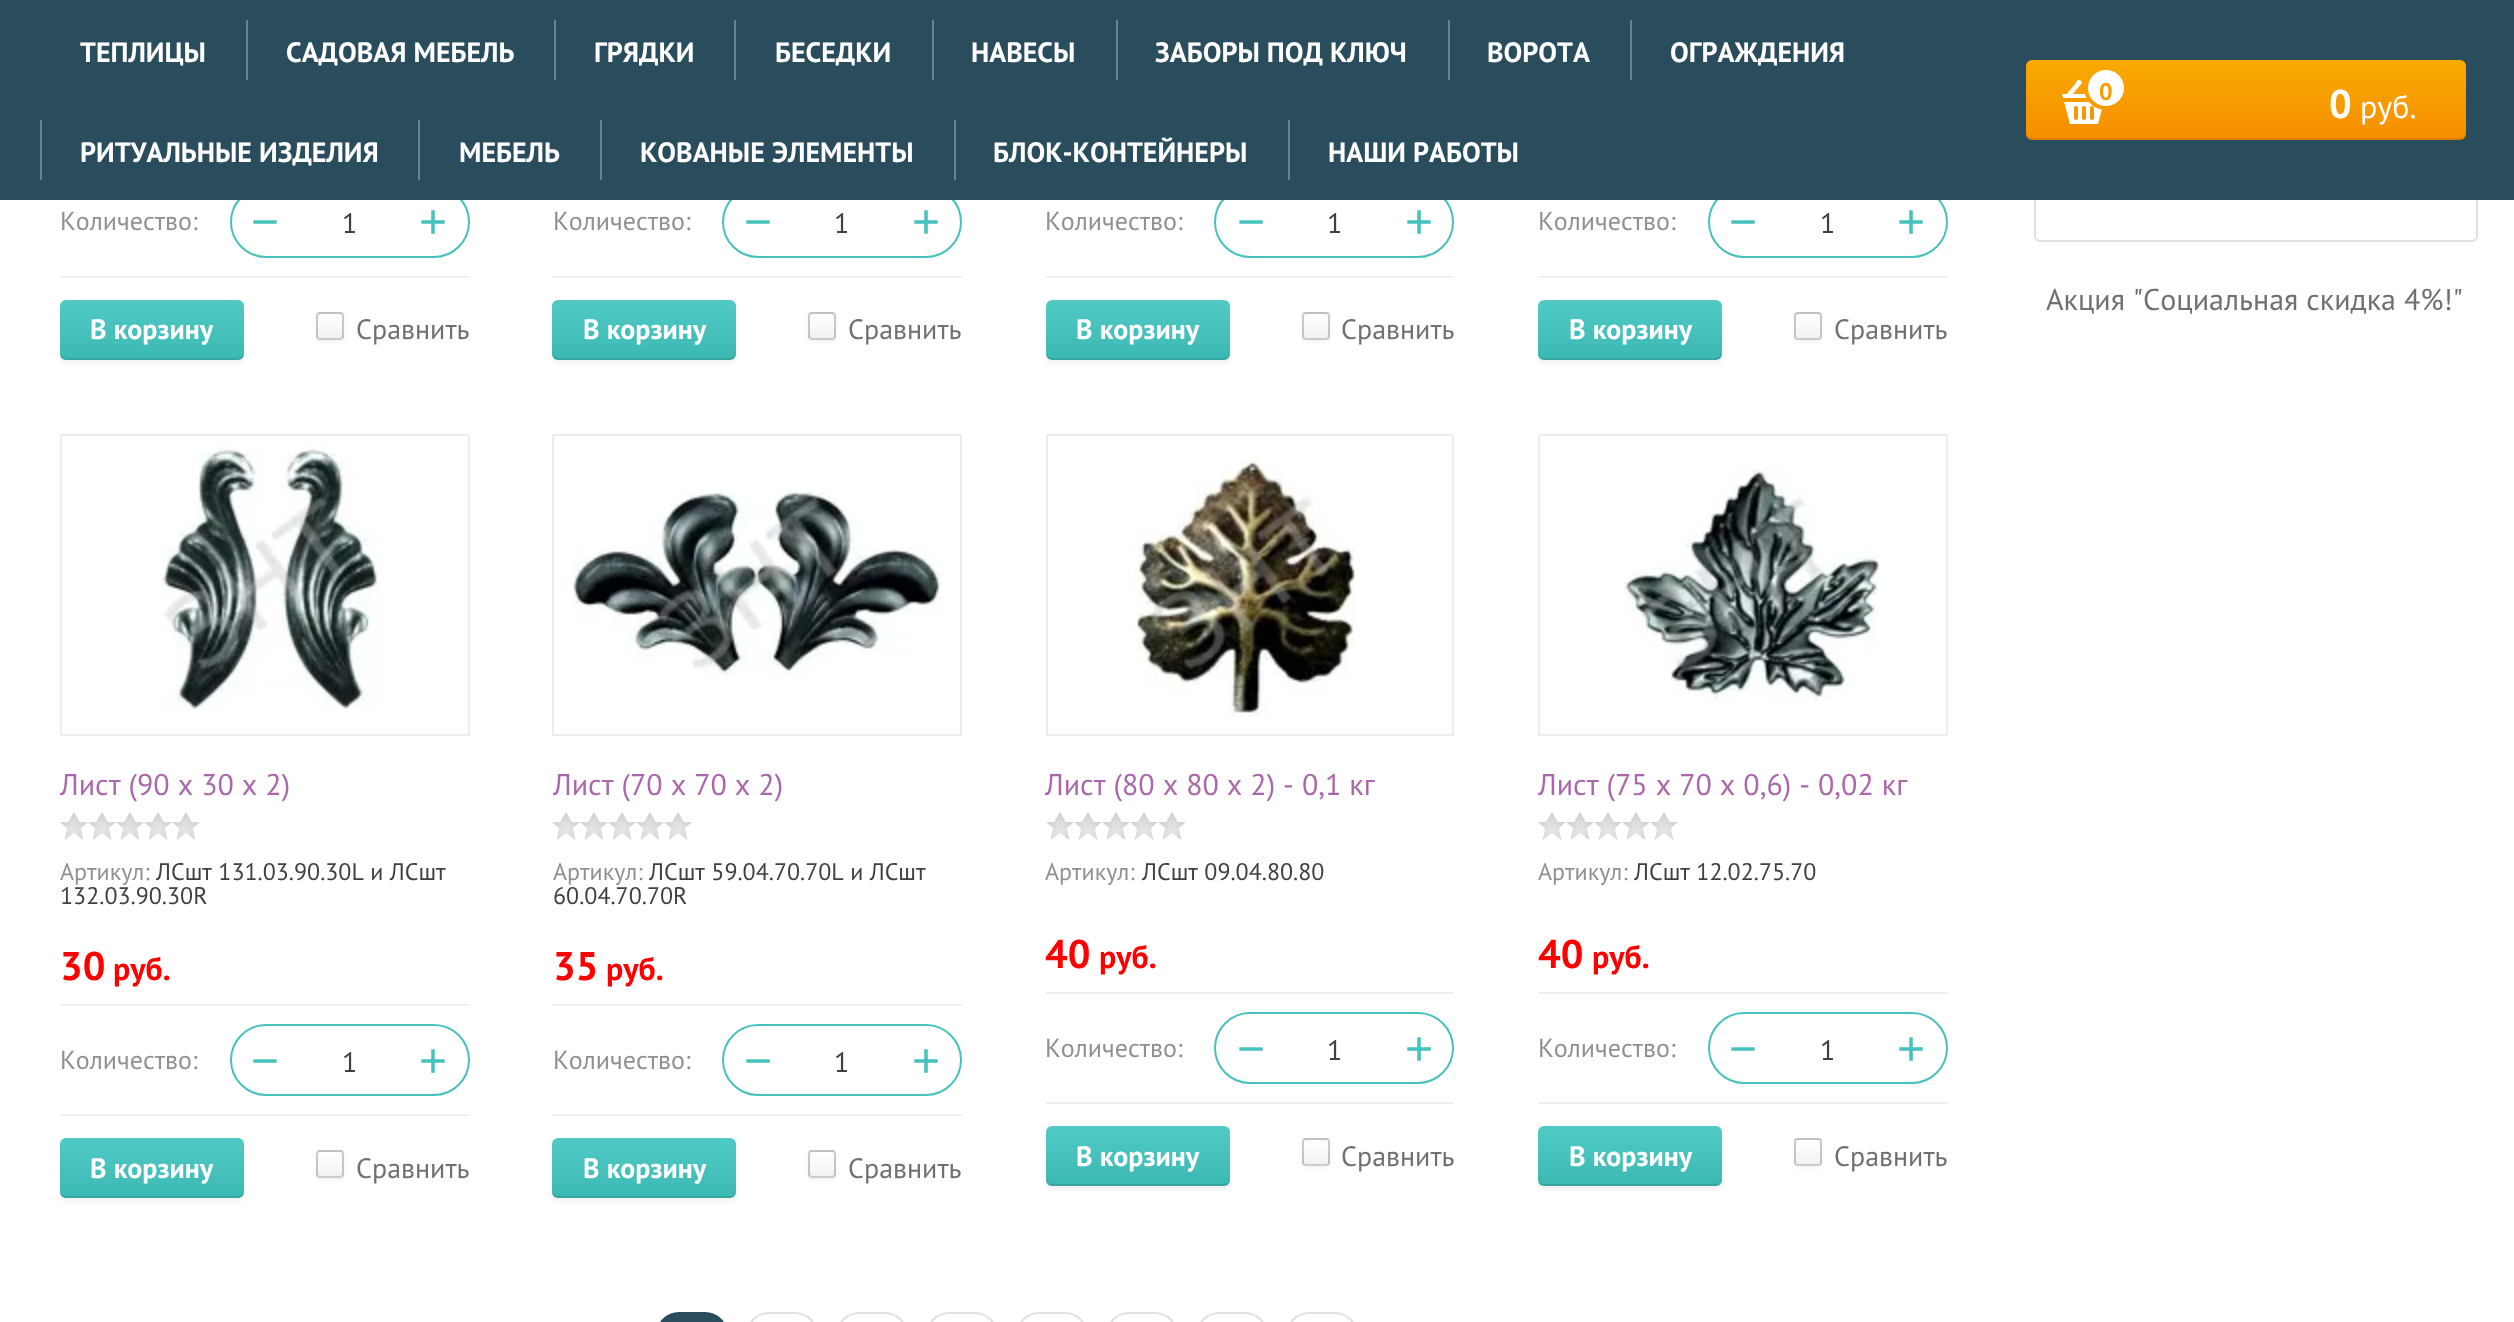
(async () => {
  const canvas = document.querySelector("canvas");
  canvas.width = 2514;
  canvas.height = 1322;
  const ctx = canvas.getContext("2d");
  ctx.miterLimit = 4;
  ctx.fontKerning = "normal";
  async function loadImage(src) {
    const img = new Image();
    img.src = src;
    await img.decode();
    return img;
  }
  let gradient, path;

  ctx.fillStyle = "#ffffff";
  ctx.fillRect(0, 0, 2514, 1322);
  ctx.beginPath();
  ctx.roundRect(231, 187, 238, 70, 35);
  ctx.strokeStyle = "#46c1bc";
  ctx.lineWidth = 2;
  ctx.stroke();
  ctx.beginPath();
  ctx.roundRect(723, 187, 238, 70, 35);
  ctx.stroke();
  ctx.beginPath();
  ctx.roundRect(1215, 187, 238, 70, 35);
  ctx.stroke();
  ctx.beginPath();
  ctx.roundRect(1709, 187, 238, 70, 35);
  ctx.stroke();
  ctx.beginPath();
  ctx.roundRect(2035, -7, 442, 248, 5);
  ctx.strokeStyle = "#e0e0e0";
  ctx.stroke();
  for (const [x, y, w, h, color] of [
    [0, 0, 2514, 200, "#2a4d5d"],
    [246, 20, 2, 60, "#6a828e"],
    [554, 20, 2, 60, "#6a828e"],
    [734, 20, 2, 60, "#6a828e"],
    [932, 20, 2, 60, "#6a828e"],
    [1116, 20, 2, 60, "#6a828e"],
    [1448, 20, 2, 60, "#6a828e"],
    [1630, 20, 2, 60, "#6a828e"],
    [40, 120, 2, 60, "#6a828e"],
    [418, 120, 2, 60, "#6a828e"],
    [600, 120, 2, 60, "#6a828e"],
    [954, 120, 2, 60, "#6a828e"],
    [1288, 120, 2, 60, "#6a828e"],
  ]) {
    ctx.fillStyle = color;
    ctx.fillRect(x, y, w, h);
  }
  gradient = ctx.createLinearGradient(2246, 140, 2246, 60);
  gradient.addColorStop(0, "#f68d00");
  gradient.addColorStop(1, "#f8ab00");
  ctx.fillStyle = gradient;
  ctx.beginPath();
  ctx.roundRect(2026, 60, 440, 80, 6);
  ctx.fill();
  ctx.fillStyle = "rgba(0, 0, 0, 0.1)";
  path = new Path2D("M2026 132V134C2026 137 2029 140 2032 140H2460C2463 140 2466 137 2466 134V132C2466 135 2463 138 2460 138H2032C2029 138 2026 135 2026 132Z");
  ctx.fill(path);
  ctx.drawImage(await loadImage("img/1.png"), 2062, 70, 62, 54);
  ctx.fillStyle = "#efefef";
  ctx.fillRect(60, 276, 410, 2);
  ctx.fillStyle = "rgba(0, 0, 0, 0.05)";
  ctx.filter = "blur(2px)";
  ctx.beginPath();
  ctx.roundRect(60, 304, 184, 60, 6);
  ctx.fill();
  ctx.filter = "none";
  gradient = ctx.createLinearGradient(152, 360, 152, 300);
  gradient.addColorStop(0, "#3cb8b2");
  gradient.addColorStop(1, "#51cac6");
  ctx.fillStyle = gradient;
  ctx.beginPath();
  ctx.roundRect(60, 300, 184, 60, 6);
  ctx.fill();
  ctx.fillStyle = "rgba(0, 0, 0, 0.1)";
  path = new Path2D("M60 352V354C60 357 63 360 66 360H238C241 360 244 357 244 354V352C244 355 241 358 238 358H66C63 358 60 355 60 352Z");
  ctx.fill(path);
  ctx.fillStyle = "rgba(0, 0, 0, 0.05)";
  ctx.filter = "blur(2px)";
  ctx.beginPath();
  ctx.roundRect(316, 314, 28, 28, 4);
  ctx.fill();
  ctx.filter = "none";
  ctx.fillStyle = "#ffffff";
  ctx.beginPath();
  ctx.roundRect(316, 312, 28, 28, 4);
  ctx.fill();
  ctx.save();
  ctx.beginPath();
  ctx.roundRect(316, 312, 28, 28, 4);
  ctx.clip();
  gradient = ctx.createLinearGradient(330, 314, 330, 290);
  gradient.addColorStop(0, "#f2f2f2");
  gradient.addColorStop(1, "#ffffff");
  ctx.fillStyle = gradient;
  ctx.fillRect(316, 312, 28, 2);
  gradient = ctx.createLinearGradient(330, 338, 330, 314);
  gradient.addColorStop(0, "#f2f2f2");
  gradient.addColorStop(1, "#ffffff");
  ctx.fillStyle = gradient;
  ctx.fillRect(316, 314, 28, 24);
  ctx.restore();
  ctx.beginPath();
  ctx.roundRect(317, 313, 26, 26, 3);
  ctx.strokeStyle = "rgba(0, 0, 0, 0.2)";
  ctx.stroke();
  ctx.fillStyle = "#efefef";
  ctx.fillRect(552, 276, 410, 2);
  ctx.fillStyle = "rgba(0, 0, 0, 0.05)";
  ctx.filter = "blur(2px)";
  ctx.beginPath();
  ctx.roundRect(552, 304, 184, 60, 6);
  ctx.fill();
  ctx.filter = "none";
  gradient = ctx.createLinearGradient(644, 360, 644, 300);
  gradient.addColorStop(0, "#3cb8b2");
  gradient.addColorStop(1, "#51cac6");
  ctx.fillStyle = gradient;
  ctx.beginPath();
  ctx.roundRect(552, 300, 184, 60, 6);
  ctx.fill();
  ctx.fillStyle = "rgba(0, 0, 0, 0.1)";
  path = new Path2D("M552 352V354C552 357 555 360 558 360H730C733 360 736 357 736 354V352C736 355 733 358 730 358H558C555 358 552 355 552 352Z");
  ctx.fill(path);
  ctx.fillStyle = "rgba(0, 0, 0, 0.05)";
  ctx.filter = "blur(2px)";
  ctx.beginPath();
  ctx.roundRect(808, 314, 28, 28, 4);
  ctx.fill();
  ctx.filter = "none";
  ctx.fillStyle = "#ffffff";
  ctx.beginPath();
  ctx.roundRect(808, 312, 28, 28, 4);
  ctx.fill();
  ctx.save();
  ctx.beginPath();
  ctx.roundRect(808, 312, 28, 28, 4);
  ctx.clip();
  gradient = ctx.createLinearGradient(822, 314, 822, 290);
  gradient.addColorStop(0, "#f2f2f2");
  gradient.addColorStop(1, "#ffffff");
  ctx.fillStyle = gradient;
  ctx.fillRect(808, 312, 28, 2);
  gradient = ctx.createLinearGradient(822, 338, 822, 314);
  gradient.addColorStop(0, "#f2f2f2");
  gradient.addColorStop(1, "#ffffff");
  ctx.fillStyle = gradient;
  ctx.fillRect(808, 314, 28, 24);
  ctx.restore();
  ctx.beginPath();
  ctx.roundRect(809, 313, 26, 26, 3);
  ctx.stroke();
  ctx.fillStyle = "#efefef";
  ctx.fillRect(1046, 276, 408, 2);
  ctx.fillStyle = "rgba(0, 0, 0, 0.05)";
  ctx.filter = "blur(2px)";
  ctx.beginPath();
  ctx.roundRect(1046, 304, 184, 60, 6);
  ctx.fill();
  ctx.filter = "none";
  gradient = ctx.createLinearGradient(1138, 360, 1138, 300);
  gradient.addColorStop(0, "#3cb8b2");
  gradient.addColorStop(1, "#51cac6");
  ctx.fillStyle = gradient;
  ctx.beginPath();
  ctx.roundRect(1046, 300, 184, 60, 6);
  ctx.fill();
  ctx.fillStyle = "rgba(0, 0, 0, 0.1)";
  path = new Path2D("M1046 352V354C1046 357 1049 360 1052 360H1224C1227 360 1230 357 1230 354V352C1230 355 1227 358 1224 358H1052C1049 358 1046 355 1046 352Z");
  ctx.fill(path);
  ctx.fillStyle = "rgba(0, 0, 0, 0.05)";
  ctx.filter = "blur(2px)";
  ctx.beginPath();
  ctx.roundRect(1302, 314, 28, 28, 4);
  ctx.fill();
  ctx.filter = "none";
  ctx.fillStyle = "#ffffff";
  ctx.beginPath();
  ctx.roundRect(1302, 312, 28, 28, 4);
  ctx.fill();
  ctx.save();
  ctx.beginPath();
  ctx.roundRect(1302, 312, 28, 28, 4);
  ctx.clip();
  gradient = ctx.createLinearGradient(1316, 314, 1316, 290);
  gradient.addColorStop(0, "#f2f2f2");
  gradient.addColorStop(1, "#ffffff");
  ctx.fillStyle = gradient;
  ctx.fillRect(1302, 312, 28, 2);
  gradient = ctx.createLinearGradient(1316, 338, 1316, 314);
  gradient.addColorStop(0, "#f2f2f2");
  gradient.addColorStop(1, "#ffffff");
  ctx.fillStyle = gradient;
  ctx.fillRect(1302, 314, 28, 24);
  ctx.restore();
  ctx.beginPath();
  ctx.roundRect(1303, 313, 26, 26, 3);
  ctx.stroke();
  ctx.fillStyle = "#efefef";
  ctx.fillRect(1538, 276, 410, 2);
  ctx.fillStyle = "rgba(0, 0, 0, 0.05)";
  ctx.filter = "blur(2px)";
  ctx.beginPath();
  ctx.roundRect(1538, 304, 184, 60, 6);
  ctx.fill();
  ctx.filter = "none";
  gradient = ctx.createLinearGradient(1630, 360, 1630, 300);
  gradient.addColorStop(0, "#3cb8b2");
  gradient.addColorStop(1, "#51cac6");
  ctx.fillStyle = gradient;
  ctx.beginPath();
  ctx.roundRect(1538, 300, 184, 60, 6);
  ctx.fill();
  ctx.fillStyle = "rgba(0, 0, 0, 0.1)";
  path = new Path2D("M1538 352V354C1538 357 1541 360 1544 360H1716C1719 360 1722 357 1722 354V352C1722 355 1719 358 1716 358H1544C1541 358 1538 355 1538 352Z");
  ctx.fill(path);
  ctx.fillStyle = "rgba(0, 0, 0, 0.05)";
  ctx.filter = "blur(2px)";
  ctx.beginPath();
  ctx.roundRect(1794, 314, 28, 28, 4);
  ctx.fill();
  ctx.filter = "none";
  ctx.fillStyle = "#ffffff";
  ctx.beginPath();
  ctx.roundRect(1794, 312, 28, 28, 4);
  ctx.fill();
  ctx.save();
  ctx.beginPath();
  ctx.roundRect(1794, 312, 28, 28, 4);
  ctx.clip();
  gradient = ctx.createLinearGradient(1808, 314, 1808, 290);
  gradient.addColorStop(0, "#f2f2f2");
  gradient.addColorStop(1, "#ffffff");
  ctx.fillStyle = gradient;
  ctx.fillRect(1794, 312, 28, 2);
  gradient = ctx.createLinearGradient(1808, 338, 1808, 314);
  gradient.addColorStop(0, "#f2f2f2");
  gradient.addColorStop(1, "#ffffff");
  ctx.fillStyle = gradient;
  ctx.fillRect(1794, 314, 28, 24);
  ctx.restore();
  ctx.beginPath();
  ctx.roundRect(1795, 313, 26, 26, 3);
  ctx.stroke();
  ctx.strokeStyle = "#ededed";
  ctx.strokeRect(61, 435, 408, 300);
  ctx.drawImage(await loadImage("img/2.png"), 160, 444, 221, 266);
  ctx.drawImage(await loadImage("img/3.png"), 60, 812, 140, 28);
  ctx.fillStyle = "#efefef";
  ctx.fillRect(60, 1004, 410, 2);
  ctx.fillRect(60, 1114, 410, 2);
  ctx.beginPath();
  ctx.roundRect(231, 1025, 238, 70, 35);
  ctx.strokeStyle = "#46c1bc";
  ctx.stroke();
  ctx.fillStyle = "rgba(0, 0, 0, 0.05)";
  ctx.filter = "blur(2px)";
  ctx.beginPath();
  ctx.roundRect(60, 1142, 184, 60, 6);
  ctx.fill();
  ctx.filter = "none";
  gradient = ctx.createLinearGradient(152, 1198, 152, 1138);
  gradient.addColorStop(0, "#3cb8b2");
  gradient.addColorStop(1, "#51cac6");
  ctx.fillStyle = gradient;
  ctx.beginPath();
  ctx.roundRect(60, 1138, 184, 60, 6);
  ctx.fill();
  ctx.fillStyle = "rgba(0, 0, 0, 0.1)";
  path = new Path2D("M60 1190V1192C60 1195 63 1198 66 1198H238C241 1198 244 1195 244 1192V1190C244 1193 241 1196 238 1196H66C63 1196 60 1193 60 1190Z");
  ctx.fill(path);
  ctx.fillStyle = "rgba(0, 0, 0, 0.05)";
  ctx.filter = "blur(2px)";
  ctx.beginPath();
  ctx.roundRect(316, 1152, 28, 28, 4);
  ctx.fill();
  ctx.filter = "none";
  ctx.fillStyle = "#ffffff";
  ctx.beginPath();
  ctx.roundRect(316, 1150, 28, 28, 4);
  ctx.fill();
  ctx.save();
  ctx.beginPath();
  ctx.roundRect(316, 1150, 28, 28, 4);
  ctx.clip();
  gradient = ctx.createLinearGradient(330, 1152, 330, 1128);
  gradient.addColorStop(0, "#f2f2f2");
  gradient.addColorStop(1, "#ffffff");
  ctx.fillStyle = gradient;
  ctx.fillRect(316, 1150, 28, 2);
  gradient = ctx.createLinearGradient(330, 1176, 330, 1152);
  gradient.addColorStop(0, "#f2f2f2");
  gradient.addColorStop(1, "#ffffff");
  ctx.fillStyle = gradient;
  ctx.fillRect(316, 1152, 28, 24);
  ctx.restore();
  ctx.beginPath();
  ctx.roundRect(317, 1151, 26, 26, 3);
  ctx.strokeStyle = "rgba(0, 0, 0, 0.2)";
  ctx.stroke();
  ctx.strokeStyle = "#ededed";
  ctx.strokeRect(553, 435, 408, 300);
  ctx.drawImage(await loadImage("img/4.png"), 573, 489, 369, 187);
  ctx.drawImage(await loadImage("img/3.png"), 552, 812, 140, 28);
  ctx.fillStyle = "#efefef";
  ctx.fillRect(552, 1004, 410, 2);
  ctx.fillRect(552, 1114, 410, 2);
  ctx.beginPath();
  ctx.roundRect(723, 1025, 238, 70, 35);
  ctx.strokeStyle = "#46c1bc";
  ctx.stroke();
  ctx.fillStyle = "rgba(0, 0, 0, 0.05)";
  ctx.filter = "blur(2px)";
  ctx.beginPath();
  ctx.roundRect(552, 1142, 184, 60, 6);
  ctx.fill();
  ctx.filter = "none";
  gradient = ctx.createLinearGradient(644, 1198, 644, 1138);
  gradient.addColorStop(0, "#3cb8b2");
  gradient.addColorStop(1, "#51cac6");
  ctx.fillStyle = gradient;
  ctx.beginPath();
  ctx.roundRect(552, 1138, 184, 60, 6);
  ctx.fill();
  ctx.fillStyle = "rgba(0, 0, 0, 0.1)";
  path = new Path2D("M552 1190V1192C552 1195 555 1198 558 1198H730C733 1198 736 1195 736 1192V1190C736 1193 733 1196 730 1196H558C555 1196 552 1193 552 1190Z");
  ctx.fill(path);
  ctx.fillStyle = "rgba(0, 0, 0, 0.05)";
  ctx.filter = "blur(2px)";
  ctx.beginPath();
  ctx.roundRect(808, 1152, 28, 28, 4);
  ctx.fill();
  ctx.filter = "none";
  ctx.fillStyle = "#ffffff";
  ctx.beginPath();
  ctx.roundRect(808, 1150, 28, 28, 4);
  ctx.fill();
  ctx.save();
  ctx.beginPath();
  ctx.roundRect(808, 1150, 28, 28, 4);
  ctx.clip();
  gradient = ctx.createLinearGradient(822, 1152, 822, 1128);
  gradient.addColorStop(0, "#f2f2f2");
  gradient.addColorStop(1, "#ffffff");
  ctx.fillStyle = gradient;
  ctx.fillRect(808, 1150, 28, 2);
  gradient = ctx.createLinearGradient(822, 1176, 822, 1152);
  gradient.addColorStop(0, "#f2f2f2");
  gradient.addColorStop(1, "#ffffff");
  ctx.fillStyle = gradient;
  ctx.fillRect(808, 1152, 28, 24);
  ctx.restore();
  ctx.beginPath();
  ctx.roundRect(809, 1151, 26, 26, 3);
  ctx.strokeStyle = "rgba(0, 0, 0, 0.2)";
  ctx.stroke();
  ctx.strokeStyle = "#ededed";
  ctx.strokeRect(1047, 435, 406, 300);
  ctx.drawImage(await loadImage("img/5.png"), 1133, 455, 222, 262);
  ctx.drawImage(await loadImage("img/3.png"), 1046, 812, 140, 28);
  ctx.fillStyle = "#efefef";
  ctx.fillRect(1046, 992, 408, 2);
  ctx.fillRect(1046, 1102, 408, 2);
  ctx.beginPath();
  ctx.roundRect(1215, 1013, 238, 70, 35);
  ctx.strokeStyle = "#46c1bc";
  ctx.stroke();
  ctx.fillStyle = "rgba(0, 0, 0, 0.05)";
  ctx.filter = "blur(2px)";
  ctx.beginPath();
  ctx.roundRect(1046, 1130, 184, 60, 6);
  ctx.fill();
  ctx.filter = "none";
  gradient = ctx.createLinearGradient(1138, 1186, 1138, 1126);
  gradient.addColorStop(0, "#3cb8b2");
  gradient.addColorStop(1, "#51cac6");
  ctx.fillStyle = gradient;
  ctx.beginPath();
  ctx.roundRect(1046, 1126, 184, 60, 6);
  ctx.fill();
  ctx.fillStyle = "rgba(0, 0, 0, 0.1)";
  path = new Path2D("M1046 1178V1180C1046 1183 1049 1186 1052 1186H1224C1227 1186 1230 1183 1230 1180V1178C1230 1181 1227 1184 1224 1184H1052C1049 1184 1046 1181 1046 1178Z");
  ctx.fill(path);
  ctx.fillStyle = "rgba(0, 0, 0, 0.05)";
  ctx.filter = "blur(2px)";
  ctx.beginPath();
  ctx.roundRect(1302, 1140, 28, 28, 4);
  ctx.fill();
  ctx.filter = "none";
  ctx.fillStyle = "#ffffff";
  ctx.beginPath();
  ctx.roundRect(1302, 1138, 28, 28, 4);
  ctx.fill();
  ctx.save();
  ctx.beginPath();
  ctx.roundRect(1302, 1138, 28, 28, 4);
  ctx.clip();
  gradient = ctx.createLinearGradient(1316, 1140, 1316, 1116);
  gradient.addColorStop(0, "#f2f2f2");
  gradient.addColorStop(1, "#ffffff");
  ctx.fillStyle = gradient;
  ctx.fillRect(1302, 1138, 28, 2);
  gradient = ctx.createLinearGradient(1316, 1164, 1316, 1140);
  gradient.addColorStop(0, "#f2f2f2");
  gradient.addColorStop(1, "#ffffff");
  ctx.fillStyle = gradient;
  ctx.fillRect(1302, 1140, 28, 24);
  ctx.restore();
  ctx.beginPath();
  ctx.roundRect(1303, 1139, 26, 26, 3);
  ctx.strokeStyle = "rgba(0, 0, 0, 0.2)";
  ctx.stroke();
  ctx.strokeStyle = "#ededed";
  ctx.strokeRect(1539, 435, 408, 300);
  ctx.drawImage(await loadImage("img/6.png"), 1622, 468, 257, 233);
  ctx.drawImage(await loadImage("img/3.png"), 1538, 812, 140, 28);
  ctx.fillStyle = "#efefef";
  ctx.fillRect(1538, 992, 410, 2);
  ctx.fillRect(1538, 1102, 410, 2);
  ctx.beginPath();
  ctx.roundRect(1709, 1013, 238, 70, 35);
  ctx.strokeStyle = "#46c1bc";
  ctx.stroke();
  ctx.fillStyle = "rgba(0, 0, 0, 0.05)";
  ctx.filter = "blur(2px)";
  ctx.beginPath();
  ctx.roundRect(1538, 1130, 184, 60, 6);
  ctx.fill();
  ctx.filter = "none";
  gradient = ctx.createLinearGradient(1630, 1186, 1630, 1126);
  gradient.addColorStop(0, "#3cb8b2");
  gradient.addColorStop(1, "#51cac6");
  ctx.fillStyle = gradient;
  ctx.beginPath();
  ctx.roundRect(1538, 1126, 184, 60, 6);
  ctx.fill();
  ctx.fillStyle = "rgba(0, 0, 0, 0.1)";
  path = new Path2D("M1538 1178V1180C1538 1183 1541 1186 1544 1186H1716C1719 1186 1722 1183 1722 1180V1178C1722 1181 1719 1184 1716 1184H1544C1541 1184 1538 1181 1538 1178Z");
  ctx.fill(path);
  ctx.fillStyle = "rgba(0, 0, 0, 0.05)";
  ctx.filter = "blur(2px)";
  ctx.beginPath();
  ctx.roundRect(1794, 1140, 28, 28, 4);
  ctx.fill();
  ctx.filter = "none";
  ctx.fillStyle = "#ffffff";
  ctx.beginPath();
  ctx.roundRect(1794, 1138, 28, 28, 4);
  ctx.fill();
  ctx.save();
  ctx.beginPath();
  ctx.roundRect(1794, 1138, 28, 28, 4);
  ctx.clip();
  gradient = ctx.createLinearGradient(1808, 1140, 1808, 1116);
  gradient.addColorStop(0, "#f2f2f2");
  gradient.addColorStop(1, "#ffffff");
  ctx.fillStyle = gradient;
  ctx.fillRect(1794, 1138, 28, 2);
  gradient = ctx.createLinearGradient(1808, 1164, 1808, 1140);
  gradient.addColorStop(0, "#f2f2f2");
  gradient.addColorStop(1, "#ffffff");
  ctx.fillStyle = gradient;
  ctx.fillRect(1794, 1140, 28, 24);
  ctx.restore();
  ctx.beginPath();
  ctx.roundRect(1795, 1139, 26, 26, 3);
  ctx.strokeStyle = "rgba(0, 0, 0, 0.2)";
  ctx.stroke();
  ctx.fillStyle = "#2a4d5d";
  ctx.beginPath();
  ctx.roundRect(657, 1313, 70, 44, 33);
  ctx.fill();
  ctx.strokeStyle = "#2a4d5d";
  ctx.stroke();
  ctx.beginPath();
  ctx.roundRect(747, 1313, 70, 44, 33);
  ctx.strokeStyle = "#e1e1e1";
  ctx.stroke();
  ctx.beginPath();
  ctx.roundRect(837, 1313, 70, 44, 33);
  ctx.stroke();
  ctx.beginPath();
  ctx.roundRect(927, 1313, 70, 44, 33);
  ctx.stroke();
  ctx.beginPath();
  ctx.roundRect(1017, 1313, 70, 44, 33);
  ctx.stroke();
  ctx.beginPath();
  ctx.roundRect(1107, 1313, 70, 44, 33);
  ctx.stroke();
  ctx.beginPath();
  ctx.roundRect(1197, 1313, 70, 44, 33);
  ctx.stroke();
  ctx.beginPath();
  ctx.roundRect(1287, 1313, 70, 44, 33);
  ctx.stroke();
  ctx.font = "bold 28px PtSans";
  ctx.fillStyle = "#ffffff";
  for (const [text, x, y] of [
    ["ТЕПЛИЦЫ", 80, 62],
    ["САДОВАЯ МЕБЕЛЬ", 286, 62],
    ["ГРЯДКИ", 594, 62],
    ["БЕСЕДКИ", 775, 62],
    ["НАВЕСЫ", 971, 62],
    ["ЗАБОРЫ ПОД КЛЮЧ", 1155, 62],
    ["ВОРОТА", 1487, 62],
    ["ОГРАЖДЕНИЯ", 1670, 62],
    ["РИТУАЛЬНЫЕ ИЗДЕЛИЯ", 80, 162],
    ["МЕБЕЛЬ", 459, 162],
    ["КОВАНЫЕ ЭЛЕМЕНТЫ", 640, 162],
    ["БЛОК-КОНТЕЙНЕРЫ", 993, 162],
    ["НАШИ РАБОТЫ", 1328, 162],
  ]) {
    ctx.fillText(text, x, y);
  }
  ctx.font = "bold 24px PtSans";
  ctx.fillStyle = "#f79c00";
  ctx.fillText("0", 2099, 100);
  ctx.font = "bold 40px PtSans";
  ctx.fillStyle = "#ffffff";
  ctx.fillText("0", 2329, 118);
  ctx.font = "32px PtSans";
  ctx.fillText("руб.", 2360, 118);
  ctx.font = "26px PtSans";
  ctx.fillStyle = "#909090";
  ctx.fillText("Количество:", 60, 230);
  ctx.font = "48px Liberation Sans";
  ctx.fillStyle = "#46c1bc";
  ctx.fillText("−", 251, 238);
  ctx.font = "28px PtSans";
  ctx.fillStyle = "#404040";
  ctx.fillText("1", 342, 233);
  ctx.font = "48px Liberation Sans";
  ctx.fillStyle = "#46c1bc";
  ctx.fillText("+", 419, 238);
  ctx.font = "bold 28px PtSans";
  ctx.fillStyle = "#ffffff";
  ctx.fillText("В корзину", 90, 339);
  ctx.font = "28px PtSans";
  ctx.fillStyle = "#707070";
  ctx.fillText("Сравнить", 356, 339);
  ctx.font = "26px PtSans";
  ctx.fillStyle = "#909090";
  ctx.fillText("Количество:", 553, 230);
  ctx.font = "48px Liberation Sans";
  ctx.fillStyle = "#46c1bc";
  ctx.fillText("−", 744, 238);
  ctx.font = "28px PtSans";
  ctx.fillStyle = "#404040";
  ctx.fillText("1", 834, 233);
  ctx.font = "48px Liberation Sans";
  ctx.fillStyle = "#46c1bc";
  ctx.fillText("+", 912, 238);
  ctx.font = "bold 28px PtSans";
  ctx.fillStyle = "#ffffff";
  ctx.fillText("В корзину", 583, 339);
  ctx.font = "28px PtSans";
  ctx.fillStyle = "#707070";
  ctx.fillText("Сравнить", 848, 339);
  ctx.font = "26px PtSans";
  ctx.fillStyle = "#909090";
  ctx.fillText("Количество:", 1045, 230);
  ctx.font = "48px Liberation Sans";
  ctx.fillStyle = "#46c1bc";
  ctx.fillText("−", 1237, 238);
  ctx.font = "28px PtSans";
  ctx.fillStyle = "#404040";
  ctx.fillText("1", 1327, 233);
  ctx.font = "48px Liberation Sans";
  ctx.fillStyle = "#46c1bc";
  ctx.fillText("+", 1405, 238);
  ctx.font = "bold 28px PtSans";
  ctx.fillStyle = "#ffffff";
  ctx.fillText("В корзину", 1076, 339);
  ctx.font = "28px PtSans";
  ctx.fillStyle = "#707070";
  ctx.fillText("Сравнить", 1341, 339);
  ctx.font = "26px PtSans";
  ctx.fillStyle = "#909090";
  ctx.fillText("Количество:", 1538, 230);
  ctx.font = "48px Liberation Sans";
  ctx.fillStyle = "#46c1bc";
  ctx.fillText("−", 1729, 238);
  ctx.font = "28px PtSans";
  ctx.fillStyle = "#404040";
  ctx.fillText("1", 1820, 233);
  ctx.font = "48px Liberation Sans";
  ctx.fillStyle = "#46c1bc";
  ctx.fillText("+", 1897, 238);
  ctx.font = "bold 28px PtSans";
  ctx.fillStyle = "#ffffff";
  ctx.fillText("В корзину", 1569, 339);
  ctx.font = "28px PtSans";
  ctx.fillStyle = "#707070";
  ctx.fillText("Сравнить", 1834, 339);
  ctx.font = "30px PtSans";
  ctx.fillStyle = "#ab67ab";
  ctx.fillText("Лист (90 х 30 х 2)", 60, 795);
  ctx.font = "24px PtSans";
  ctx.fillStyle = "#909090";
  ctx.fillText("Артикул:", 60, 880);
  ctx.fillStyle = "#404040";
  ctx.fillText("ЛСшт 131.03.90.30L и ЛСшт", 156, 880);
  ctx.fillText("132.03.90.30R", 60, 904);
  ctx.font = "bold 40px PtSans";
  ctx.fillStyle = "#ff0000";
  ctx.fillText("30", 60, 980);
  ctx.font = "bold 32px PtSans";
  ctx.fillText("руб.", 113, 980);
  ctx.font = "26px PtSans";
  ctx.fillStyle = "#909090";
  ctx.fillText("Количество:", 60, 1069);
  ctx.font = "48px Liberation Sans";
  ctx.fillStyle = "#46c1bc";
  ctx.fillText("−", 251, 1077);
  ctx.font = "28px PtSans";
  ctx.fillStyle = "#404040";
  ctx.fillText("1", 342, 1072);
  ctx.font = "48px Liberation Sans";
  ctx.fillStyle = "#46c1bc";
  ctx.fillText("+", 419, 1077);
  ctx.font = "bold 28px PtSans";
  ctx.fillStyle = "#ffffff";
  ctx.fillText("В корзину", 90, 1178);
  ctx.font = "28px PtSans";
  ctx.fillStyle = "#707070";
  ctx.fillText("Сравнить", 356, 1178);
  ctx.font = "30px PtSans";
  ctx.fillStyle = "#ab67ab";
  ctx.fillText("Лист (70 х 70 х 2)", 553, 795);
  ctx.font = "24px PtSans";
  ctx.fillStyle = "#909090";
  ctx.fillText("Артикул:", 553, 880);
  ctx.fillStyle = "#404040";
  ctx.fillText("ЛСшт 59.04.70.70L и ЛСшт", 649, 880);
  ctx.fillText("60.04.70.70R", 553, 904);
  ctx.font = "bold 40px PtSans";
  ctx.fillStyle = "#ff0000";
  ctx.fillText("35", 553, 980);
  ctx.font = "bold 32px PtSans";
  ctx.fillText("руб.", 606, 980);
  ctx.font = "26px PtSans";
  ctx.fillStyle = "#909090";
  ctx.fillText("Количество:", 553, 1069);
  ctx.font = "48px Liberation Sans";
  ctx.fillStyle = "#46c1bc";
  ctx.fillText("−", 744, 1077);
  ctx.font = "28px PtSans";
  ctx.fillStyle = "#404040";
  ctx.fillText("1", 834, 1072);
  ctx.font = "48px Liberation Sans";
  ctx.fillStyle = "#46c1bc";
  ctx.fillText("+", 912, 1077);
  ctx.font = "bold 28px PtSans";
  ctx.fillStyle = "#ffffff";
  ctx.fillText("В корзину", 583, 1178);
  ctx.font = "28px PtSans";
  ctx.fillStyle = "#707070";
  ctx.fillText("Сравнить", 848, 1178);
  ctx.font = "30px PtSans";
  ctx.fillStyle = "#ab67ab";
  ctx.fillText("Лист (80 х 80 х 2) - 0,1 кг", 1045, 795);
  ctx.font = "24px PtSans";
  ctx.fillStyle = "#909090";
  ctx.fillText("Артикул:", 1045, 880);
  ctx.fillStyle = "#404040";
  ctx.fillText("ЛСшт 09.04.80.80", 1142, 880);
  ctx.font = "bold 40px PtSans";
  ctx.fillStyle = "#ff0000";
  ctx.fillText("40", 1045, 968);
  ctx.font = "bold 32px PtSans";
  ctx.fillText("руб.", 1099, 968);
  ctx.font = "26px PtSans";
  ctx.fillStyle = "#909090";
  ctx.fillText("Количество:", 1045, 1057);
  ctx.font = "48px Liberation Sans";
  ctx.fillStyle = "#46c1bc";
  ctx.fillText("−", 1237, 1065);
  ctx.font = "28px PtSans";
  ctx.fillStyle = "#404040";
  ctx.fillText("1", 1327, 1060);
  ctx.font = "48px Liberation Sans";
  ctx.fillStyle = "#46c1bc";
  ctx.fillText("+", 1405, 1065);
  ctx.font = "bold 28px PtSans";
  ctx.fillStyle = "#ffffff";
  ctx.fillText("В корзину", 1076, 1166);
  ctx.font = "28px PtSans";
  ctx.fillStyle = "#707070";
  ctx.fillText("Сравнить", 1341, 1166);
  ctx.font = "30px PtSans";
  ctx.fillStyle = "#ab67ab";
  ctx.fillText("Лист (75 х 70 х 0,6) - 0,02 кг", 1538, 795);
  ctx.font = "24px PtSans";
  ctx.fillStyle = "#909090";
  ctx.fillText("Артикул:", 1538, 880);
  ctx.fillStyle = "#404040";
  ctx.fillText("ЛСшт 12.02.75.70", 1634, 880);
  ctx.font = "bold 40px PtSans";
  ctx.fillStyle = "#ff0000";
  ctx.fillText("40", 1538, 968);
  ctx.font = "bold 32px PtSans";
  ctx.fillText("руб.", 1592, 968);
  ctx.font = "26px PtSans";
  ctx.fillStyle = "#909090";
  ctx.fillText("Количество:", 1538, 1057);
  ctx.font = "48px Liberation Sans";
  ctx.fillStyle = "#46c1bc";
  ctx.fillText("−", 1729, 1065);
  ctx.font = "28px PtSans";
  ctx.fillStyle = "#404040";
  ctx.fillText("1", 1820, 1060);
  ctx.font = "48px Liberation Sans";
  ctx.fillStyle = "#46c1bc";
  ctx.fillText("+", 1897, 1065);
  ctx.font = "bold 28px PtSans";
  ctx.fillStyle = "#ffffff";
  ctx.fillText("В корзину", 1569, 1166);
  ctx.font = "28px PtSans";
  ctx.fillStyle = "#707070";
  ctx.fillText("Сравнить", 1834, 1166);
  ctx.font = "30px PtSans";
  ctx.fillText("Акция \"Социальная скидка 4%!\"", 2046, 310);
})();
